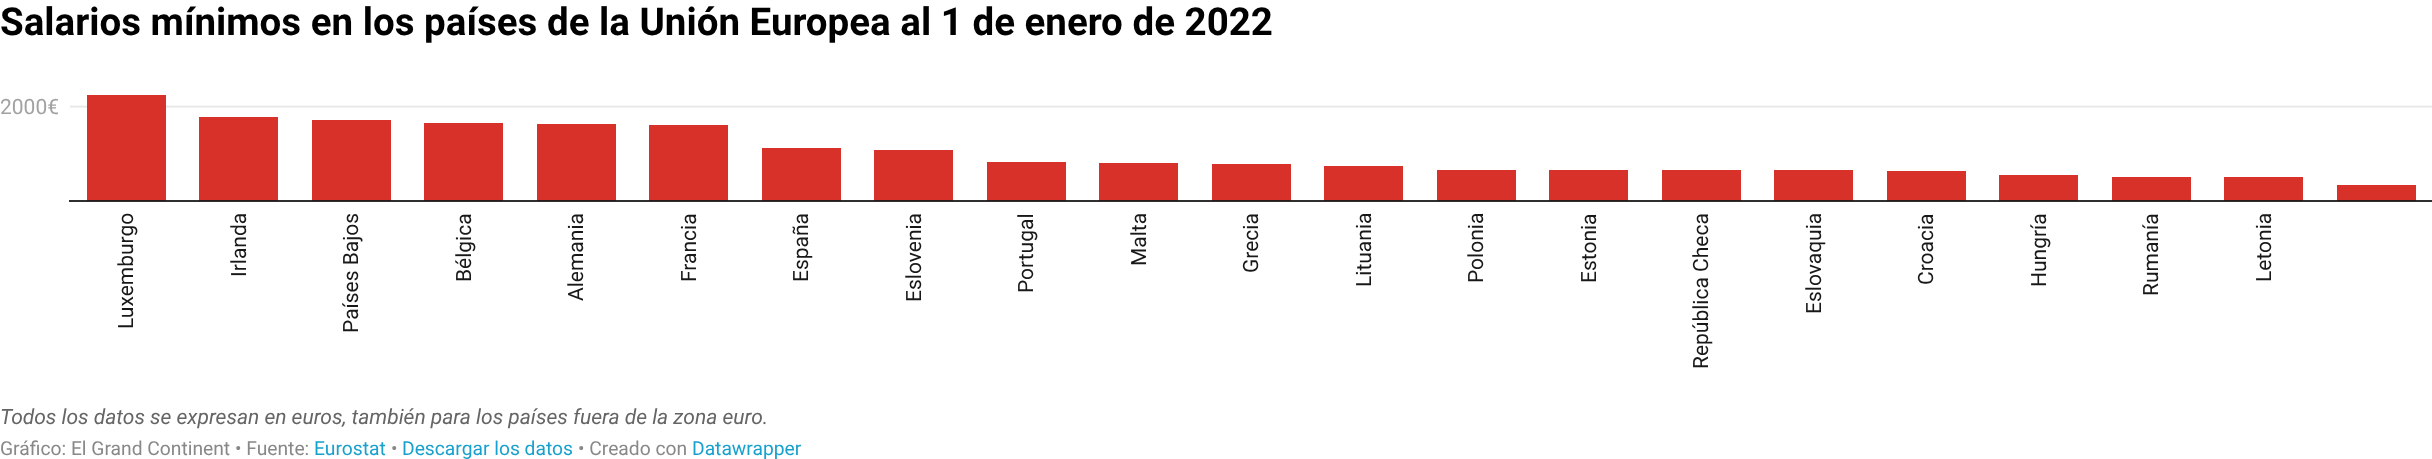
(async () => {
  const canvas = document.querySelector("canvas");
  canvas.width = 2432;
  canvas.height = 459;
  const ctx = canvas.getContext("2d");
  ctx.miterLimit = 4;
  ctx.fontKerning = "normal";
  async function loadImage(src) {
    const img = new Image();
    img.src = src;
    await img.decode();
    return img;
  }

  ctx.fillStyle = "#ffffff";
  ctx.fillRect(0, 0, 2432, 459);
  ctx.drawImage(await loadImage("img/1.png"), 69, 95, 2363, 107);
  ctx.font = "bold 38.5px Roboto";
  ctx.fillStyle = "#000000";
  ctx.fillText("Salarios mínimos en los países de la Unión Europea al 1 de enero de 2022", 0, 35);
  ctx.font = "21px Roboto";
  ctx.fillStyle = "#a2a2a2";
  ctx.fillText("2000€", 0, 114);
  ctx.fillStyle = "#181818";
  ctx.save();
  ctx.translate(133, 329);
  ctx.rotate(-90 * Math.PI / 180);
  ctx.fillText("Luxemburgo", 0, 0);
  ctx.restore();
  ctx.save();
  ctx.translate(246, 277);
  ctx.rotate(-90 * Math.PI / 180);
  ctx.fillText("Irlanda", 0, 0);
  ctx.restore();
  ctx.save();
  ctx.translate(358, 333);
  ctx.rotate(-90 * Math.PI / 180);
  ctx.fillText("Países Bajos", 0, 0);
  ctx.restore();
  ctx.save();
  ctx.translate(471, 282);
  ctx.rotate(-90 * Math.PI / 180);
  ctx.fillText("Bélgica", 0, 0);
  ctx.restore();
  ctx.save();
  ctx.translate(583, 301);
  ctx.rotate(-90 * Math.PI / 180);
  ctx.fillText("Alemania", 0, 0);
  ctx.restore();
  ctx.save();
  ctx.translate(696, 282);
  ctx.rotate(-90 * Math.PI / 180);
  ctx.fillText("Francia", 0, 0);
  ctx.restore();
  ctx.save();
  ctx.translate(808, 282);
  ctx.rotate(-90 * Math.PI / 180);
  ctx.fillText("España", 0, 0);
  ctx.restore();
  ctx.save();
  ctx.translate(921, 302);
  ctx.rotate(-90 * Math.PI / 180);
  ctx.fillText("Eslovenia", 0, 0);
  ctx.restore();
  ctx.save();
  ctx.translate(1033, 293);
  ctx.rotate(-90 * Math.PI / 180);
  ctx.fillText("Portugal", 0, 0);
  ctx.restore();
  ctx.save();
  ctx.translate(1146, 266);
  ctx.rotate(-90 * Math.PI / 180);
  ctx.fillText("Malta", 0, 0);
  ctx.restore();
  ctx.save();
  ctx.translate(1258, 273);
  ctx.rotate(-90 * Math.PI / 180);
  ctx.fillText("Grecia", 0, 0);
  ctx.restore();
  ctx.save();
  ctx.translate(1371, 287);
  ctx.rotate(-90 * Math.PI / 180);
  ctx.fillText("Lituania", 0, 0);
  ctx.restore();
  ctx.save();
  ctx.translate(1483, 283);
  ctx.rotate(-90 * Math.PI / 180);
  ctx.fillText("Polonia", 0, 0);
  ctx.restore();
  ctx.save();
  ctx.translate(1596, 283);
  ctx.rotate(-90 * Math.PI / 180);
  ctx.fillText("Estonia", 0, 0);
  ctx.restore();
  ctx.save();
  ctx.translate(1708, 369);
  ctx.rotate(-90 * Math.PI / 180);
  ctx.fillText("República Checa", 0, 0);
  ctx.restore();
  ctx.save();
  ctx.translate(1821, 314);
  ctx.rotate(-90 * Math.PI / 180);
  ctx.fillText("Eslovaquia", 0, 0);
  ctx.restore();
  ctx.save();
  ctx.translate(1933, 285);
  ctx.rotate(-90 * Math.PI / 180);
  ctx.fillText("Croacia", 0, 0);
  ctx.restore();
  ctx.save();
  ctx.translate(2046, 287);
  ctx.rotate(-90 * Math.PI / 180);
  ctx.fillText("Hungría", 0, 0);
  ctx.restore();
  ctx.save();
  ctx.translate(2158, 296);
  ctx.rotate(-90 * Math.PI / 180);
  ctx.fillText("Rumanía", 0, 0);
  ctx.restore();
  ctx.save();
  ctx.translate(2271, 282);
  ctx.rotate(-90 * Math.PI / 180);
  ctx.fillText("Letonia", 0, 0);
  ctx.restore();
  ctx.font = "italic 21px Roboto";
  ctx.fillStyle = "#656565";
  ctx.fillText("Todos los datos se expresan en euros, también para los países fuera de la zona euro.", 0, 424);
  ctx.font = "19.25px Roboto";
  ctx.fillStyle = "#888888";
  ctx.fillText("Gráfico: El Grand Continent • Fuente:", 0, 455);
  ctx.fillStyle = "#18a1cd";
  ctx.fillText("Eurostat", 314, 455);
  ctx.fillStyle = "#888888";
  ctx.fillText("•", 391, 455);
  ctx.fillStyle = "#18a1cd";
  ctx.fillText("Descargar los datos", 402, 455);
  ctx.fillStyle = "#888888";
  ctx.fillText("• Creado con", 578, 455);
  ctx.fillStyle = "#18a1cd";
  ctx.fillText("Datawrapper", 692, 455);
})();
